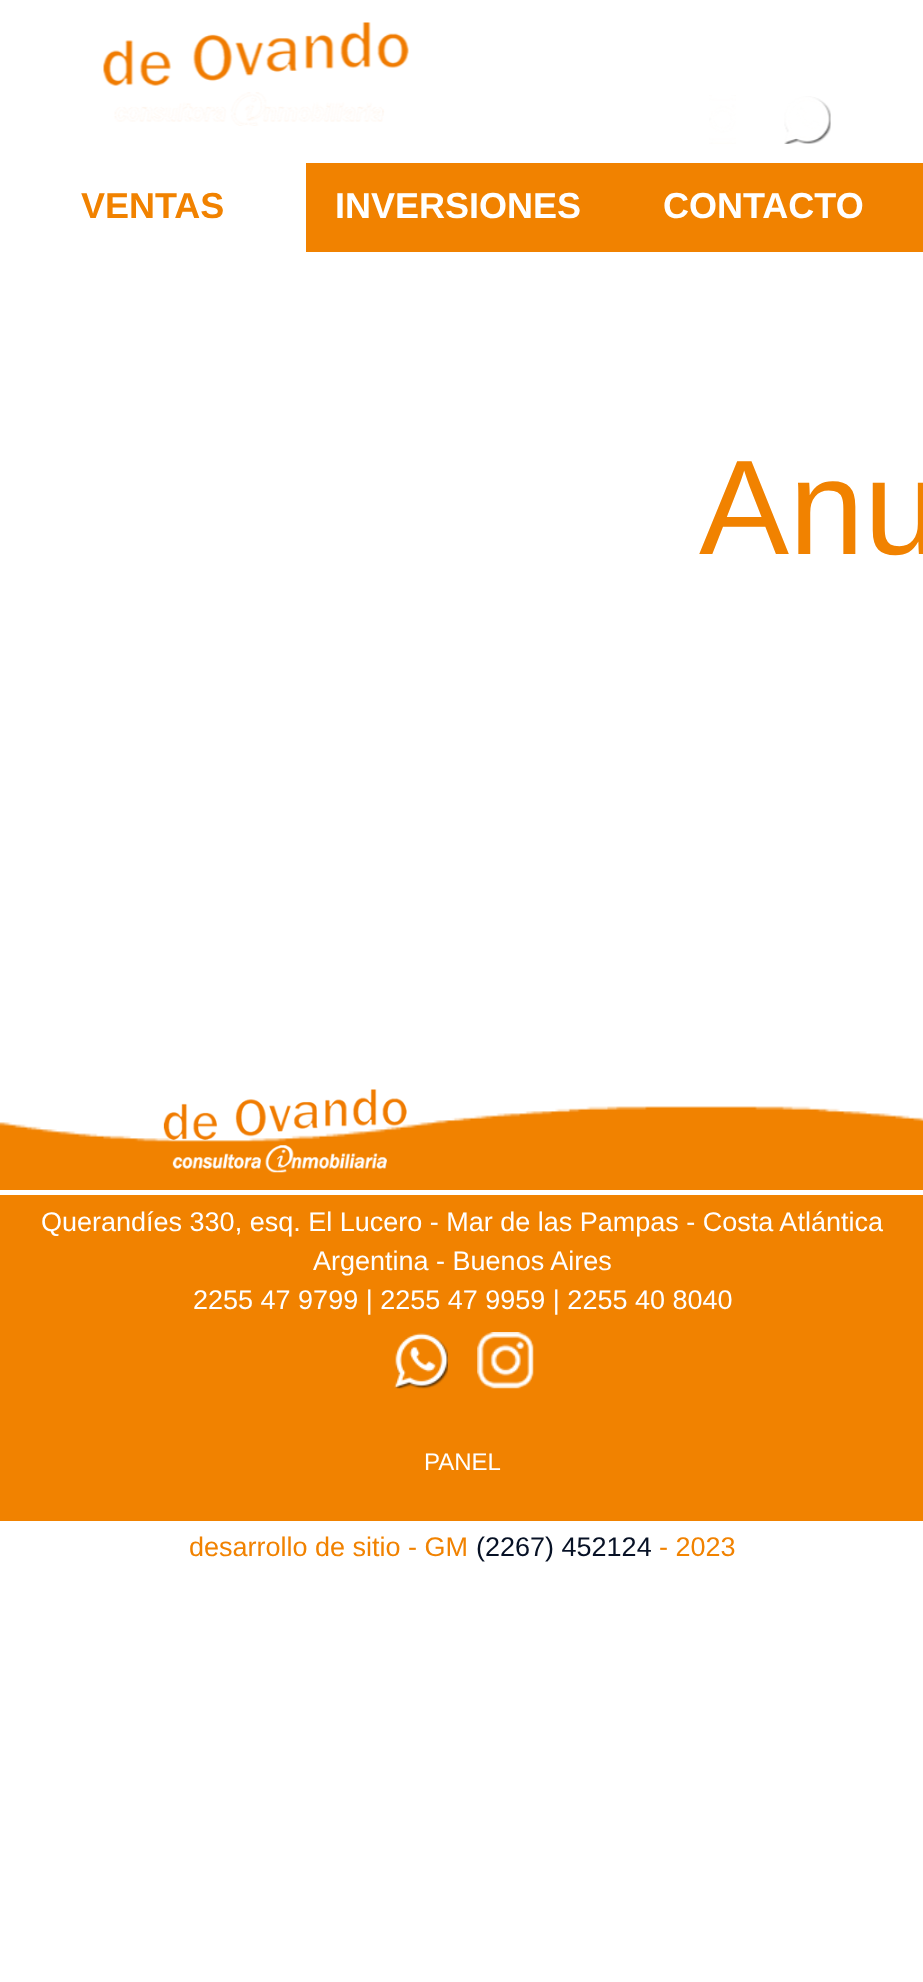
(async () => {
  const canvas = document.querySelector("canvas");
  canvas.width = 923;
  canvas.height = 1982;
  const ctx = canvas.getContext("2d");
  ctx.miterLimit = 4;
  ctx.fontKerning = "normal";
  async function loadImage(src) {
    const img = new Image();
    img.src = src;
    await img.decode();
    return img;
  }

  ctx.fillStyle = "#ffffff";
  ctx.fillRect(0, 0, 923, 1982);
  ctx.drawImage(await loadImage("img/1.png"), 103, 22, 306, 104);
  ctx.drawImage(await loadImage("img/2.png"), 709, 95, 27, 49);
  ctx.drawImage(await loadImage("img/3.png"), 784, 96, 47, 48);
  ctx.fillStyle = "#f18200";
  ctx.fillRect(306, 163, 617, 89);
  ctx.fillRect(0, 1142, 923, 379);
  ctx.drawImage(await loadImage("img/4.png"), 0, 997, 923, 145);
  ctx.drawImage(await loadImage("img/5.png"), 163, 1089, 244, 84);
  ctx.fillStyle = "#ffffff";
  ctx.fillRect(0, 1190, 923, 5);
  ctx.drawImage(await loadImage("img/6.png"), 394, 1333, 54, 56);
  ctx.drawImage(await loadImage("img/7.png"), 477, 1332, 57, 57);
  ctx.font = "bold 36px Liberation Sans";
  ctx.fillStyle = "#f18200";
  ctx.fillText("VENTAS", 81, 218);
  ctx.fillStyle = "#ffffff";
  ctx.fillText("INVERSIONES", 335, 218);
  ctx.fillText("CONTACTO", 663, 218);
  ctx.font = "135px Liberation Sans";
  ctx.fillStyle = "#f18200";
  ctx.fillText("Anu", 699, 554);
  ctx.font = "27px Liberation Sans";
  ctx.fillStyle = "#ffffff";
  for (const [text, x, y] of [
    ["Querandíes 330, esq. El Lucero - Mar de las Pampas - Costa Atlántica", 41, 1231],
    ["Argentina - Buenos Aires", 313, 1270],
    ["2255 47 9799 | 2255 47 9959 | 2255 40 8040", 193, 1309],
  ]) {
    ctx.fillText(text, x, y);
  }
  ctx.font = "24px Liberation Sans";
  ctx.fillText("PANEL", 424, 1470);
  ctx.font = "27px Liberation Sans";
  ctx.fillStyle = "#f18200";
  ctx.fillText("desarrollo de sitio - GM", 189, 1556);
  ctx.fillStyle = "#071125";
  ctx.fillText("(2267) 452124", 476, 1556);
  ctx.fillStyle = "#f18200";
  ctx.fillText("- 2023", 659, 1556);
})();
